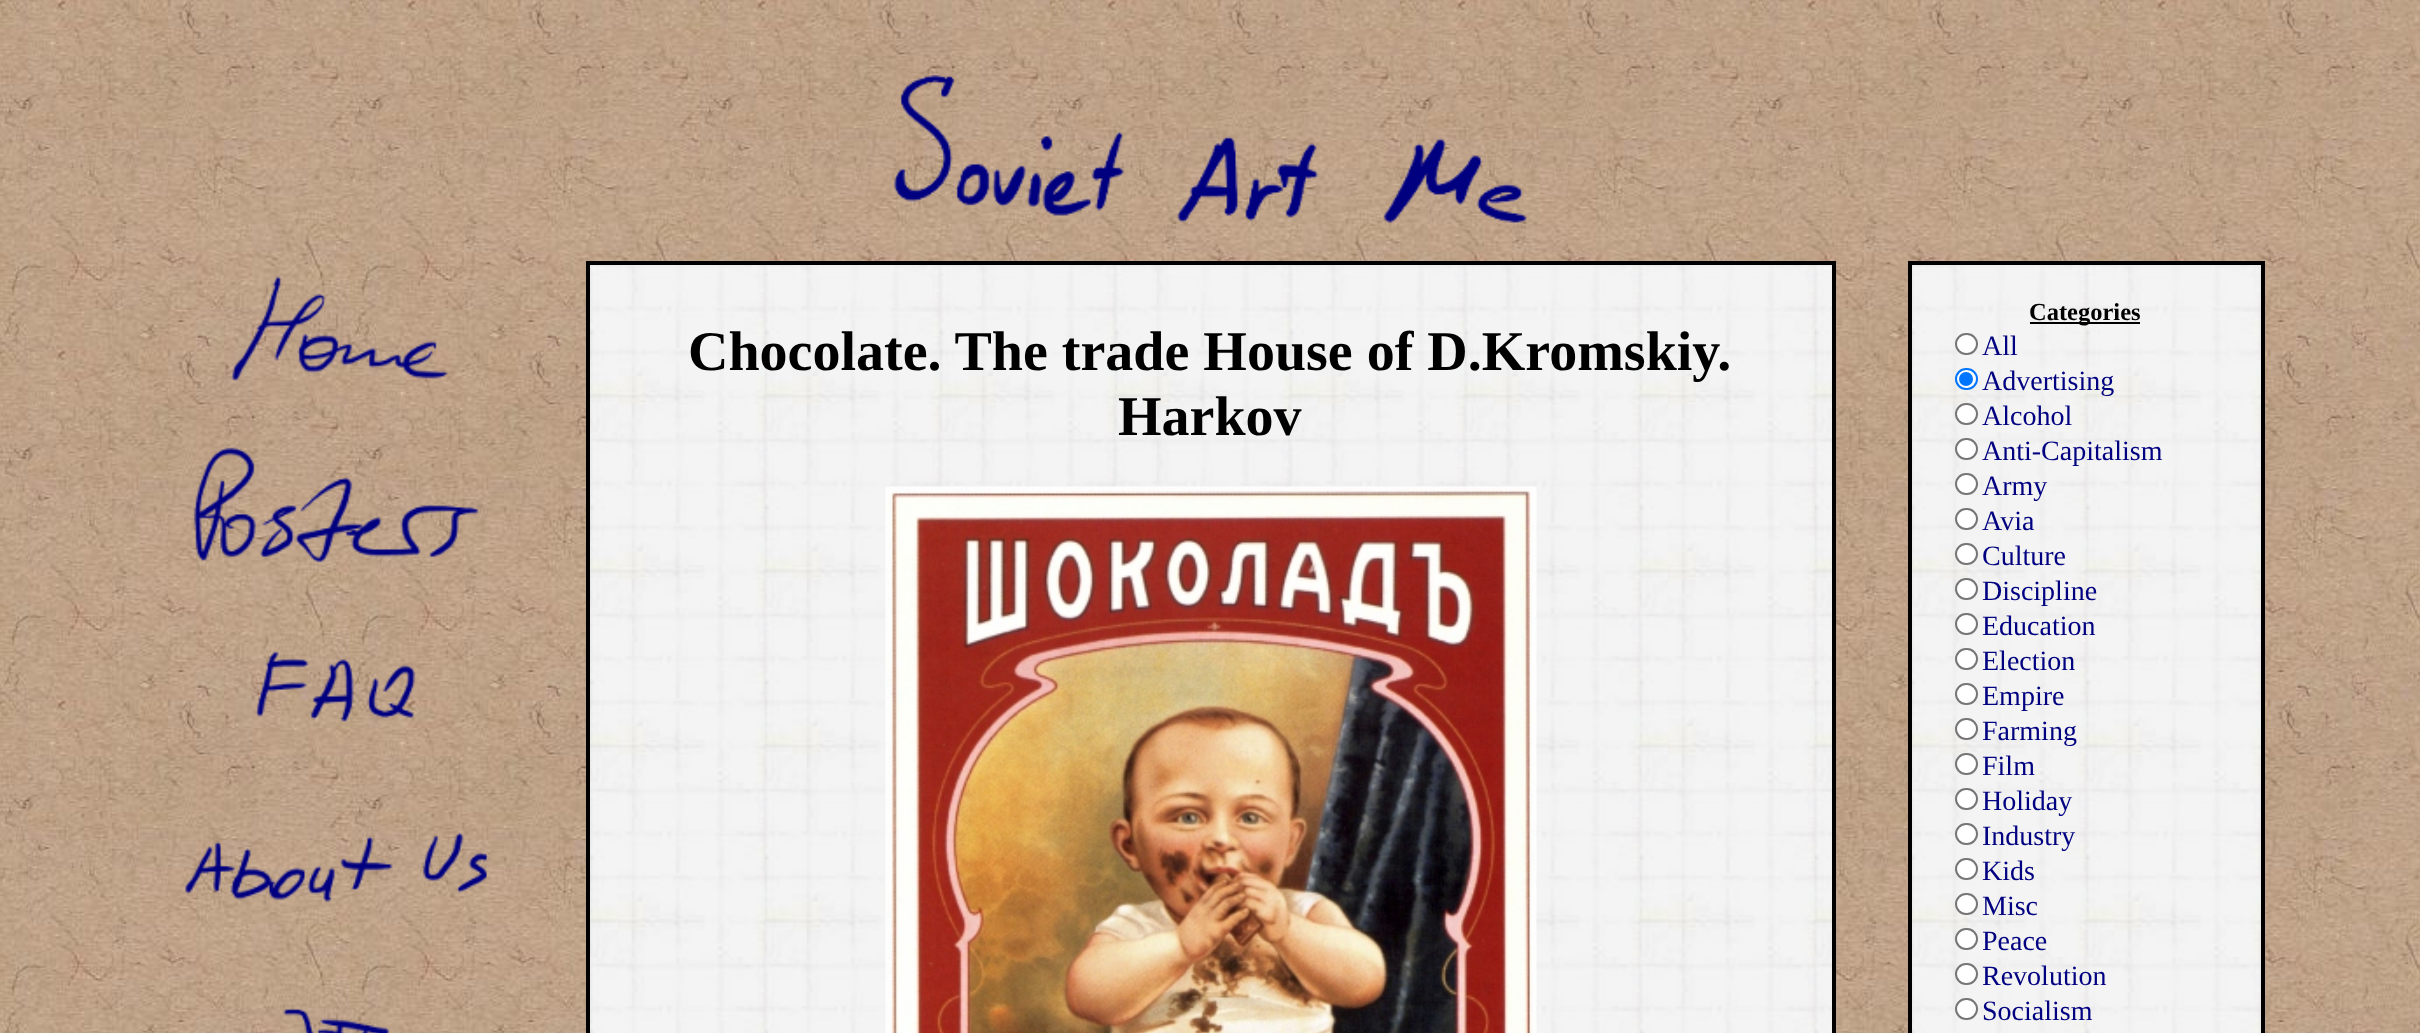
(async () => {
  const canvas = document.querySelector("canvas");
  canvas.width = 2420;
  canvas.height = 1033;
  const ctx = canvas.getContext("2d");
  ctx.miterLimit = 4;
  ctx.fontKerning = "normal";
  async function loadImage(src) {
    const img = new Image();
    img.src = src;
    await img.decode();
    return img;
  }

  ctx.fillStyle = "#ffffff";
  ctx.fillRect(0, 0, 2420, 1033);
  ctx.drawImage(await loadImage("img/1.png"), 0, 0, 2420, 1033);
  ctx.drawImage(await loadImage("img/2.png"), 893, 74, 634, 149);
  ctx.drawImage(await loadImage("img/3.png"), 231, 276, 218, 105);
  ctx.drawImage(await loadImage("img/4.png"), 193, 447, 286, 116);
  ctx.drawImage(await loadImage("img/5.png"), 255, 650, 161, 72);
  ctx.drawImage(await loadImage("img/6.png"), 184, 832, 305, 70);
  ctx.drawImage(await loadImage("img/7.png"), 283, 1008, 107, 25);
  ctx.drawImage(await loadImage("img/8.png"), 590, 265, 1242, 768);
  ctx.drawImage(await loadImage("img/9.png"), 885, 486, 652, 547);
  ctx.strokeStyle = "#000000";
  ctx.lineWidth = 4;
  ctx.strokeRect(588, 263, 1246, 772);
  ctx.drawImage(await loadImage("img/10.png"), 1912, 265, 349, 768);
  ctx.fillStyle = "#000000";
  ctx.fillRect(2030, 322, 110, 2);
  ctx.fillStyle = "#ffffff";
  ctx.beginPath();
  ctx.roundRect(1956, 334, 21, 20, 10);
  ctx.fill();
  ctx.strokeStyle = "#767676";
  ctx.lineWidth = 2;
  ctx.stroke();
  ctx.beginPath();
  ctx.roundRect(1956, 369, 21, 20, 10);
  ctx.fill();
  ctx.strokeStyle = "#0075ff";
  ctx.stroke();
  ctx.fillStyle = "#0075ff";
  ctx.beginPath();
  ctx.arc(1966, 379, 7, 0, Math.PI * 2);
  ctx.fill();
  ctx.fillStyle = "#ffffff";
  ctx.beginPath();
  ctx.roundRect(1956, 404, 21, 20, 10);
  ctx.fill();
  ctx.strokeStyle = "#767676";
  ctx.stroke();
  ctx.beginPath();
  ctx.roundRect(1956, 439, 21, 20, 10);
  ctx.fill();
  ctx.stroke();
  ctx.beginPath();
  ctx.roundRect(1956, 474, 21, 20, 10);
  ctx.fill();
  ctx.stroke();
  ctx.beginPath();
  ctx.roundRect(1956, 509, 21, 20, 10);
  ctx.fill();
  ctx.stroke();
  ctx.beginPath();
  ctx.roundRect(1956, 544, 21, 20, 10);
  ctx.fill();
  ctx.stroke();
  ctx.beginPath();
  ctx.roundRect(1956, 579, 21, 20, 10);
  ctx.fill();
  ctx.stroke();
  ctx.beginPath();
  ctx.roundRect(1956, 614, 21, 20, 10);
  ctx.fill();
  ctx.stroke();
  ctx.beginPath();
  ctx.roundRect(1956, 649, 21, 20, 10);
  ctx.fill();
  ctx.stroke();
  ctx.beginPath();
  ctx.roundRect(1956, 684, 21, 20, 10);
  ctx.fill();
  ctx.stroke();
  ctx.beginPath();
  ctx.roundRect(1956, 719, 21, 20, 10);
  ctx.fill();
  ctx.stroke();
  ctx.beginPath();
  ctx.roundRect(1956, 754, 21, 20, 10);
  ctx.fill();
  ctx.stroke();
  ctx.beginPath();
  ctx.roundRect(1956, 789, 21, 20, 10);
  ctx.fill();
  ctx.stroke();
  ctx.beginPath();
  ctx.roundRect(1956, 824, 21, 20, 10);
  ctx.fill();
  ctx.stroke();
  ctx.beginPath();
  ctx.roundRect(1956, 859, 21, 20, 10);
  ctx.fill();
  ctx.stroke();
  ctx.beginPath();
  ctx.roundRect(1956, 894, 21, 20, 10);
  ctx.fill();
  ctx.stroke();
  ctx.beginPath();
  ctx.roundRect(1956, 929, 21, 20, 10);
  ctx.fill();
  ctx.stroke();
  ctx.beginPath();
  ctx.roundRect(1956, 964, 21, 20, 10);
  ctx.fill();
  ctx.stroke();
  ctx.beginPath();
  ctx.roundRect(1956, 999, 21, 20, 10);
  ctx.fill();
  ctx.stroke();
  ctx.strokeStyle = "#000000";
  ctx.lineWidth = 4;
  ctx.strokeRect(1910, 263, 353, 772);
  ctx.font = "bold 56px Liberation Serif";
  ctx.fillStyle = "#000000";
  ctx.fillText("Chocolate. The trade House of D.Kromskiy.", 688, 370);
  ctx.fillText("Harkov", 1118, 435);
  ctx.font = "bold 24.5px Liberation Serif";
  ctx.fillText("Categories", 2029, 320);
  ctx.font = "28px Liberation Serif";
  ctx.fillStyle = "#000080";
  for (const [text, x, y] of [
    ["All", 1982, 355],
    ["Advertising", 1982, 390],
    ["Alcohol", 1982, 425],
    ["Anti-Capitalism", 1982, 460],
    ["Army", 1982, 495],
    ["Avia", 1982, 530],
    ["Culture", 1982, 565],
    ["Discipline", 1982, 600],
    ["Education", 1982, 635],
    ["Election", 1982, 670],
    ["Empire", 1982, 705],
    ["Farming", 1982, 740],
    ["Film", 1982, 775],
    ["Holiday", 1982, 810],
    ["Industry", 1982, 845],
    ["Kids", 1982, 880],
    ["Misc", 1982, 915],
    ["Peace", 1982, 950],
    ["Revolution", 1982, 985],
    ["Socialism", 1982, 1020],
  ]) {
    ctx.fillText(text, x, y);
  }
})();
